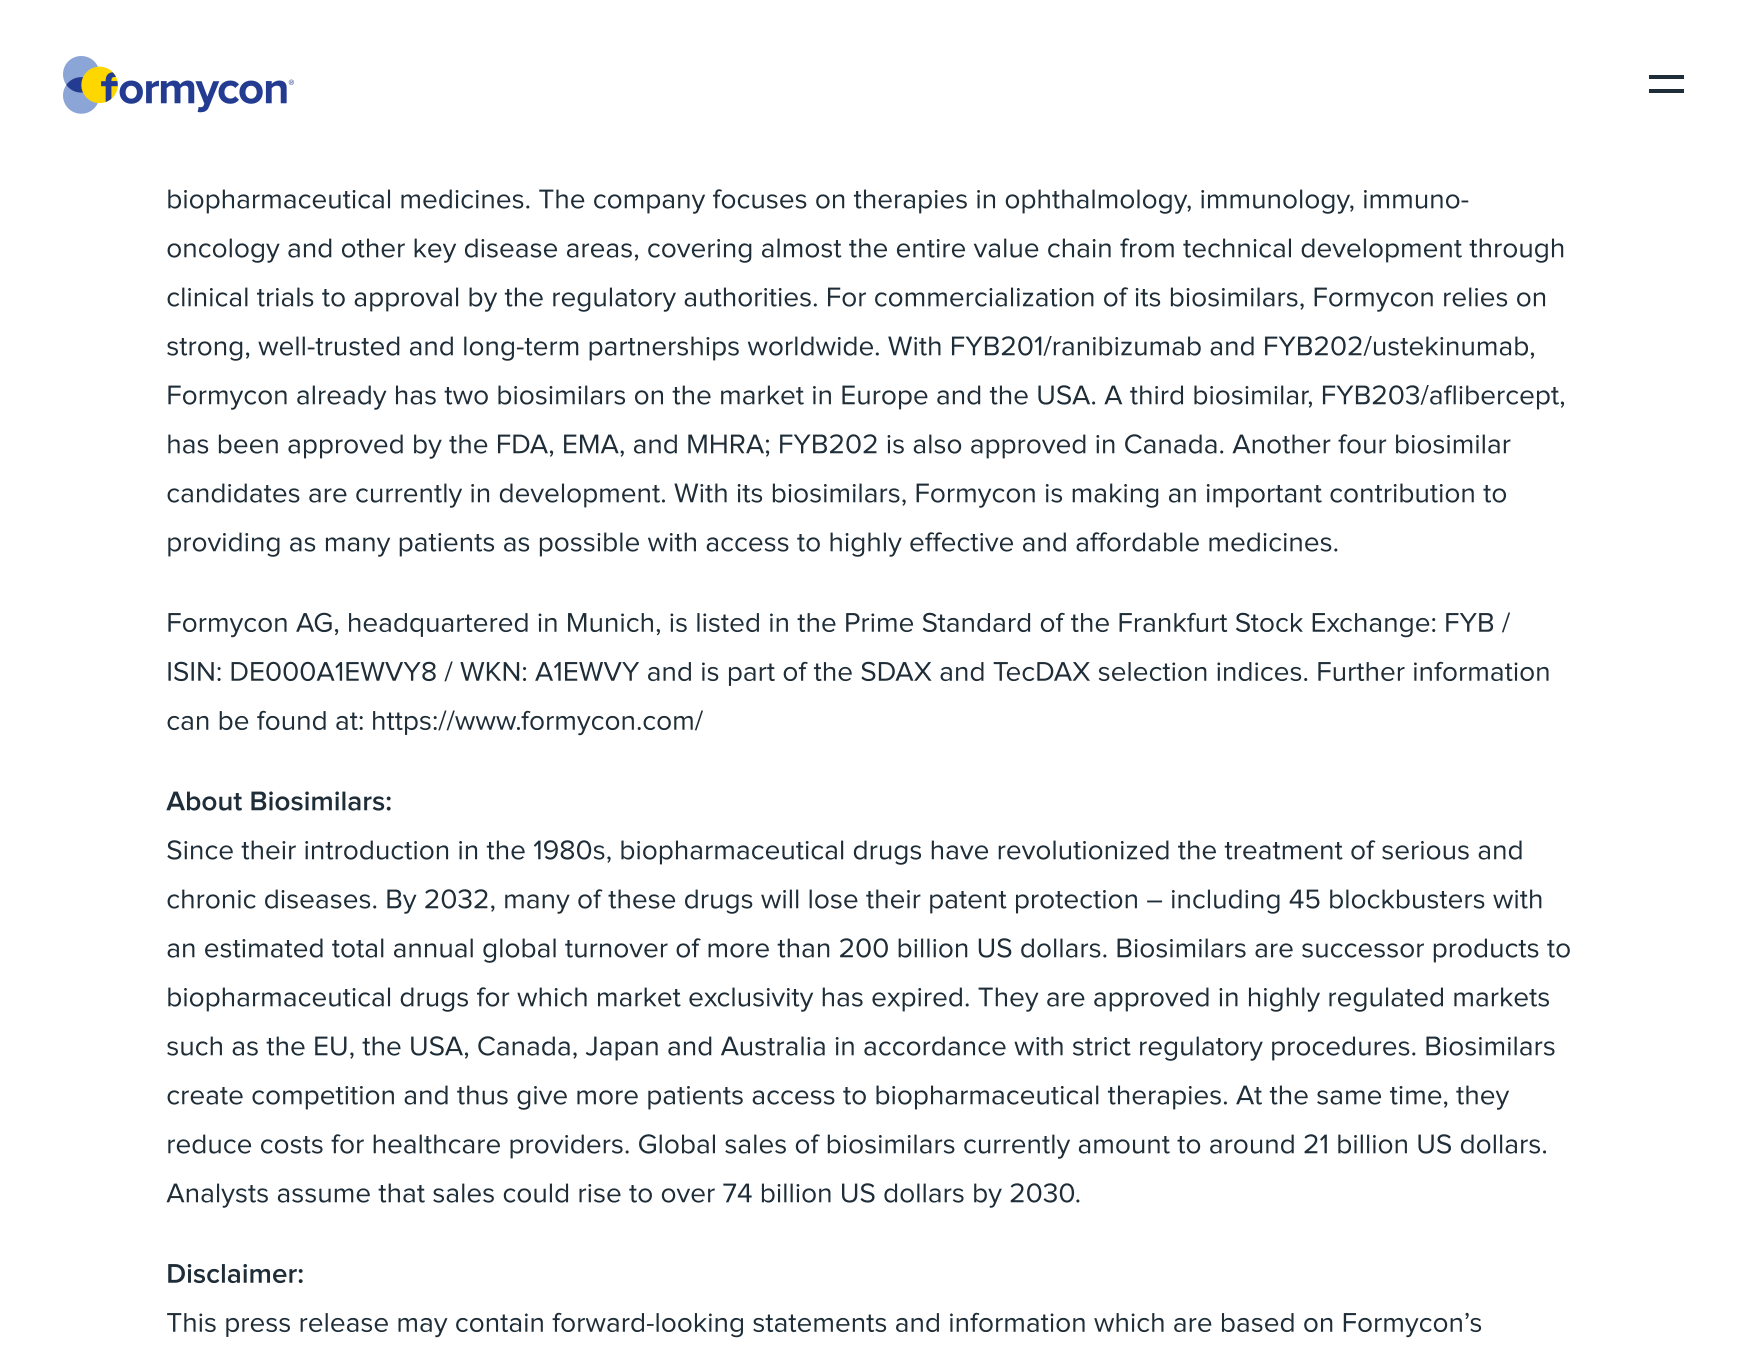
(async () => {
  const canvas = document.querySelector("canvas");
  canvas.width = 1738;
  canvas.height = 1345;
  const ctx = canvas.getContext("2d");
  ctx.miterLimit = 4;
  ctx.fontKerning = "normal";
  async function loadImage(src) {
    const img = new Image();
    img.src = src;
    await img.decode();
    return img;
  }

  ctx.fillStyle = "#ffffff";
  ctx.fillRect(0, 0, 1738, 1345);
  ctx.drawImage(await loadImage("img/1.png"), 63, 56, 231, 58);
  ctx.fillStyle = "#1e2d37";
  ctx.fillRect(1649, 75, 35, 4);
  ctx.fillRect(1649, 89, 35, 4);
  ctx.drawImage(await loadImage("img/2.png"), 168, 189, 1301, 25);
  ctx.drawImage(await loadImage("img/3.png"), 167, 238, 1397, 25);
  ctx.drawImage(await loadImage("img/4.png"), 167, 287, 1379, 25);
  ctx.drawImage(await loadImage("img/5.png"), 167, 336, 1368, 25);
  ctx.drawImage(await loadImage("img/6.png"), 168, 385, 1397, 25);
  ctx.drawImage(await loadImage("img/7.png"), 168, 434, 1343, 25);
  ctx.drawImage(await loadImage("img/8.png"), 167, 483, 1340, 25);
  ctx.drawImage(await loadImage("img/9.png"), 168, 532, 1170, 25);
  ctx.drawImage(await loadImage("img/10.png"), 168, 612, 1343, 26);
  ctx.drawImage(await loadImage("img/11.png"), 168, 661, 1381, 25);
  ctx.drawImage(await loadImage("img/12.png"), 167, 710, 196, 21);
  ctx.drawImage(await loadImage("img/13.png"), 373, 710, 330, 26);
  ctx.drawImage(await loadImage("img/14.png"), 166, 791, 225, 20);
  ctx.drawImage(await loadImage("img/15.png"), 167, 840, 1355, 25);
  ctx.drawImage(await loadImage("img/16.png"), 167, 889, 1375, 25);
  ctx.drawImage(await loadImage("img/17.png"), 167, 938, 1403, 25);
  ctx.drawImage(await loadImage("img/18.png"), 168, 987, 1381, 25);
  ctx.drawImage(await loadImage("img/19.png"), 167, 1036, 1388, 25);
  ctx.drawImage(await loadImage("img/20.png"), 167, 1085, 1343, 25);
  ctx.drawImage(await loadImage("img/21.png"), 168, 1134, 1379, 25);
  ctx.drawImage(await loadImage("img/22.png"), 166, 1183, 914, 25);
  ctx.drawImage(await loadImage("img/23.png"), 168, 1263, 135, 21);
  ctx.drawImage(await loadImage("img/24.png"), 167, 1312, 1315, 26);
})();
